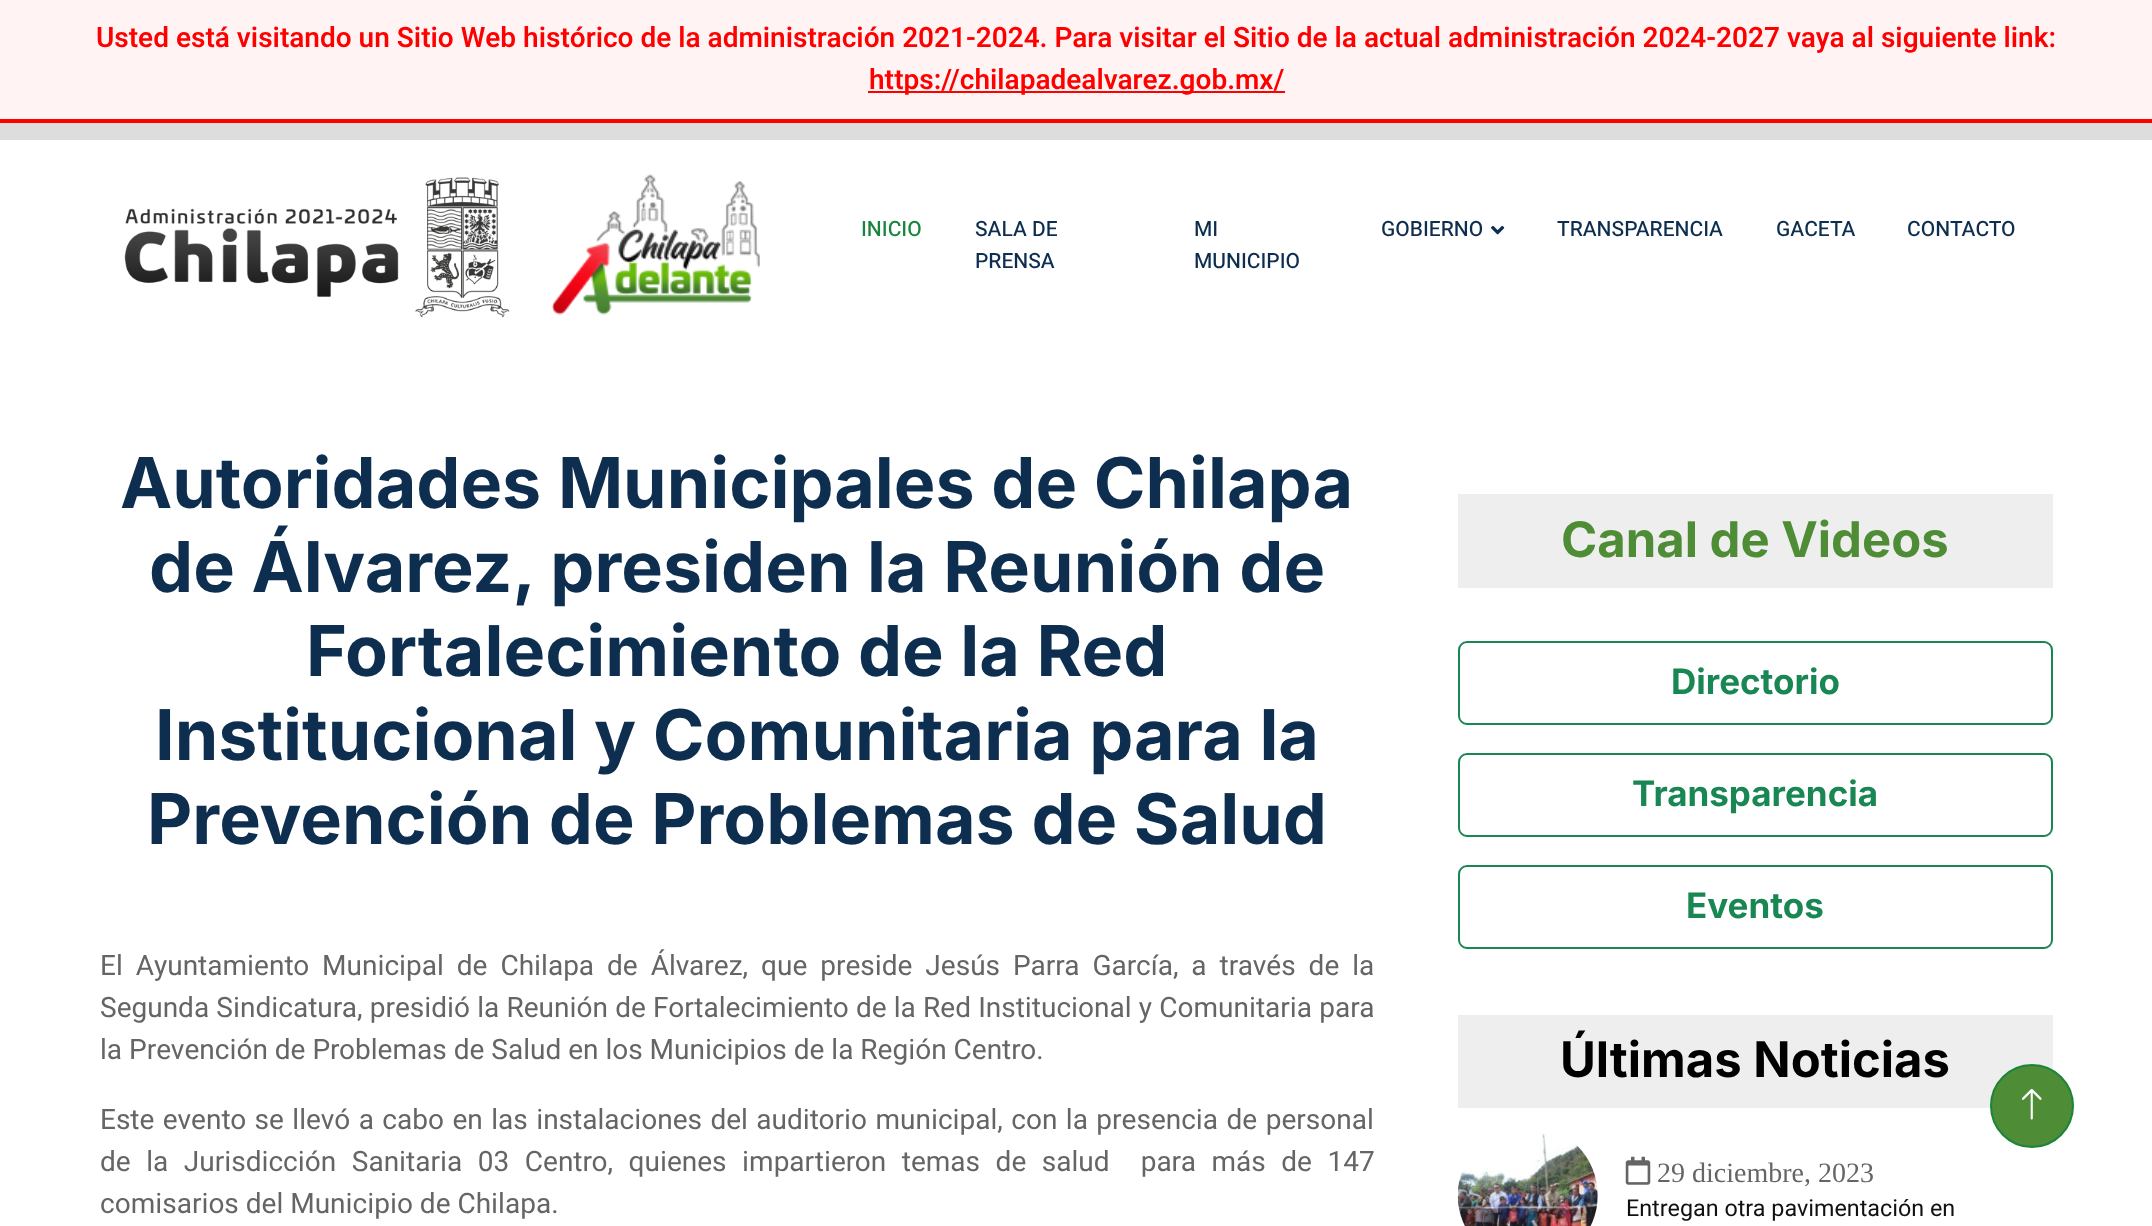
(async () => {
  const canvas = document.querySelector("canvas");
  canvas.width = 2152;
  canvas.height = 1226;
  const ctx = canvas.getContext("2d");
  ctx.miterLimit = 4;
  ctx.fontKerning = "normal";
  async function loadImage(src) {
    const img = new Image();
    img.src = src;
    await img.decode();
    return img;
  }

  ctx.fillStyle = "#dddddd";
  ctx.fillRect(0, 0, 2152, 1226);
  for (const [x, y, w, h, color] of [
    [0, 0, 2152, 119, "#fff3f3"],
    [0, 119, 2152, 4, "#ff0000"],
    [868, 91, 417, 2, "#ff0000"],
    [0, 140, 2152, 1086, "#ffffff"],
  ]) {
    ctx.fillStyle = color;
    ctx.fillRect(x, y, w, h);
  }
  ctx.drawImage(await loadImage("img/1.png"), 124, 177, 386, 141);
  ctx.drawImage(await loadImage("img/2.png"), 551, 173, 210, 142);
  ctx.drawImage(await loadImage("img/3.png"), 1491, 225, 14, 10);
  ctx.fillStyle = "#eeeeee";
  ctx.fillRect(1458, 494, 595, 94);
  ctx.beginPath();
  ctx.roundRect(1459, 642, 593, 82, 8);
  ctx.strokeStyle = "#198754";
  ctx.lineWidth = 2;
  ctx.stroke();
  ctx.beginPath();
  ctx.roundRect(1459, 754, 593, 82, 8);
  ctx.stroke();
  ctx.beginPath();
  ctx.roundRect(1459, 866, 593, 82, 8);
  ctx.stroke();
  ctx.fillRect(1458, 1015, 595, 93);
  ctx.drawImage(await loadImage("img/4.png"), 1457, 1133, 141, 93);
  ctx.drawImage(await loadImage("img/5.png"), 1625, 1156, 26, 29);
  ctx.fillStyle = "#4e8c35";
  ctx.beginPath();
  ctx.arc(2032, 1106, 41, 0, Math.PI * 2);
  ctx.fill();
  ctx.strokeStyle = "#1a843c";
  ctx.stroke();
  ctx.drawImage(await loadImage("img/6.png"), 2022, 1089, 20, 31);
  ctx.font = "600 28px Heebo";
  ctx.fillStyle = "#ff0000";
  ctx.fillText("Usted está visitando un Sitio Web histórico de la administración 2021-2024. Para visitar el Sitio de la actual administración 2024-2027 vaya al siguiente link:", 96, 47);
  ctx.fillText("https://chilapadealvarez.gob.mx/", 869, 89);
  ctx.font = "500 21px Heebo";
  ctx.fillStyle = "#1a843c";
  ctx.fillText("INICIO", 861, 236);
  ctx.fillStyle = "#0e2e50";
  for (const [text, x, y] of [
    ["SALA DE", 975, 236],
    ["PRENSA", 975, 268],
    ["MI", 1194, 236],
    ["MUNICIPIO", 1194, 268],
    ["GOBIERNO", 1381, 236],
    ["TRANSPARENCIA", 1557, 236],
    ["GACETA", 1776, 236],
    ["CONTACTO", 1907, 236],
  ]) {
    ctx.fillText(text, x, y);
  }
  ctx.font = "bold 70px Inter";
  for (const [text, x, y] of [
    ["Autoridades Municipales de Chilapa", 120, 508],
    ["de Álvarez, presiden la Reunión de", 149, 592],
    ["Fortalecimiento de la Red", 306, 676],
    ["Institucional y Comunitaria para la", 155, 760],
    ["Prevención de Problemas de Salud", 147, 844],
  ]) {
    ctx.fillText(text, x, y);
  }
  ctx.wordSpacing = "6px";
  ctx.font = "28px Heebo";
  ctx.fillStyle = "#666565";
  ctx.fillText("El Ayuntamiento Municipal de Chilapa de Álvarez, que preside Jesús Parra García, a través de la", 100, 975);
  ctx.wordSpacing = "0.25px";
  ctx.fillText("Segunda Sindicatura, presidió la Reunión de Fortalecimiento de la Red Institucional y Comunitaria para", 100, 1017);
  ctx.wordSpacing = "0px";
  ctx.fillText("la Prevención de Problemas de Salud en los Municipios de la Región Centro.", 100, 1059);
  ctx.wordSpacing = "1.5px";
  ctx.fillText("Este evento se llevó a cabo en las instalaciones del auditorio municipal, con la presencia de personal", 100, 1129);
  ctx.wordSpacing = "8.6px";
  ctx.fillText("de la Jurisdicción Sanitaria 03 Centro, quienes impartieron temas de salud  para más de 147", 100, 1171);
  ctx.wordSpacing = "0px";
  ctx.fillText("comisarios del Municipio de Chilapa.", 100, 1213);
  ctx.font = "bold 49px Inter";
  ctx.fillStyle = "#4e8c35";
  ctx.fillText("Canal de Videos", 1561, 557);
  ctx.font = "bold 35px Inter";
  ctx.fillStyle = "#198754";
  for (const [text, x, y] of [
    ["Directorio", 1671, 694],
    ["Transparencia", 1632, 806],
    ["Eventos", 1686, 918],
  ]) {
    ctx.fillText(text, x, y);
  }
  ctx.font = "bold 49px Inter";
  ctx.fillStyle = "#000000";
  ctx.fillText("Últimas Noticias", 1560, 1077);
  ctx.font = "28px Liberation Serif";
  ctx.fillStyle = "#666565";
  ctx.fillText("29 diciembre, 2023", 1657, 1182);
  ctx.font = "23.3px Heebo";
  ctx.fillStyle = "#111111";
  ctx.fillText("Entregan otra pavimentación en", 1626, 1216);
})();
